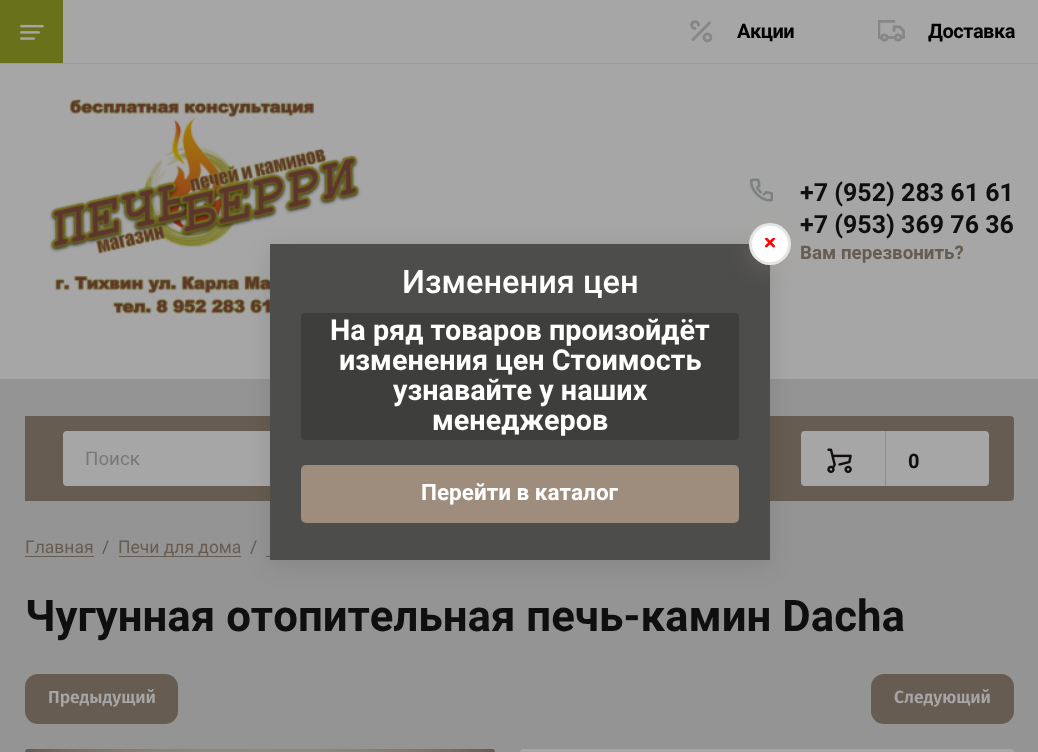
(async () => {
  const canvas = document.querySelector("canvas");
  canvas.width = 1038;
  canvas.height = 752;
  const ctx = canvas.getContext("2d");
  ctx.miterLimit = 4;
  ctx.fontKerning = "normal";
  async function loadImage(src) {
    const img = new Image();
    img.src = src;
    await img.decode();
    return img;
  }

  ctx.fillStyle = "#949494";
  ctx.fillRect(0, 0, 1038, 752);
  ctx.fillStyle = "#a6a6a6";
  ctx.fillRect(0, 0, 1038, 379);
  ctx.fillStyle = "#67721a";
  ctx.fillRect(0, 0, 63, 63);
  ctx.drawImage(await loadImage("img/1.png"), 20, 24, 24, 16);
  ctx.drawImage(await loadImage("img/2.png"), 690, 20, 23, 23);
  ctx.drawImage(await loadImage("img/3.png"), 878, 20, 27, 22);
  ctx.fillStyle = "#9d9d9d";
  ctx.fillRect(0, 63, 1038, 1);
  ctx.drawImage(await loadImage("img/4.png"), 49, 98, 312, 216);
  ctx.drawImage(await loadImage("img/5.png"), 750, 178, 23, 24);
  ctx.fillStyle = "#675c51";
  ctx.beginPath();
  ctx.roundRect(25, 416, 989, 85, [0, 4, 4, 0]);
  ctx.fill();
  ctx.fillStyle = "#a6a6a6";
  ctx.beginPath();
  ctx.roundRect(63, 431, 495, 55, [4, 0, 0, 4]);
  ctx.fill();
  ctx.beginPath();
  ctx.roundRect(801, 431, 188, 55, 4);
  ctx.fill();
  ctx.drawImage(await loadImage("img/6.png"), 827, 448, 25, 26);
  for (const [x, y, w, h, color] of [
    [885, 431, 1, 55, "#8d8d8d"],
    [25, 556, 69, 1, "#675c51"],
    [119, 556, 122, 1, "#675c51"],
    [266, 556, 4, 1, "#675c51"],
  ]) {
    ctx.fillStyle = color;
    ctx.fillRect(x, y, w, h);
  }
  ctx.beginPath();
  ctx.roundRect(25, 674, 153, 50, 13);
  ctx.fill();
  ctx.beginPath();
  ctx.roundRect(871, 674, 143, 50, 13);
  ctx.fill();
  ctx.drawImage(await loadImage("img/7.png"), 25, 749, 470, 3);
  ctx.fillStyle = "#a6a6a6";
  ctx.beginPath();
  ctx.roundRect(520, 749, 494, 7, 4);
  ctx.fill();
  ctx.fillStyle = "rgba(0, 0, 0, 0.1)";
  ctx.filter = "blur(12.5px)";
  ctx.beginPath();
  ctx.rect(270, 249, 500, 316);
  ctx.fill();
  ctx.filter = "none";
  ctx.fillStyle = "#4d4d4c";
  ctx.fillRect(270, 244, 500, 316);
  ctx.fillStyle = "rgba(195, 178, 155, 0.2)";
  ctx.filter = "blur(12.5px)";
  ctx.beginPath();
  ctx.roundRect(749, 228, 42, 42, 21);
  ctx.fill();
  ctx.filter = "none";
  ctx.fillStyle = "#ffffff";
  ctx.beginPath();
  ctx.arc(770, 244, 21, 0, Math.PI * 2);
  ctx.fill();
  ctx.drawImage(await loadImage("img/8.png"), 765, 238, 10, 10);
  ctx.beginPath();
  ctx.arc(770, 244, 19.5, 0, Math.PI * 2);
  ctx.strokeStyle = "rgba(0, 0, 0, 0.1)";
  ctx.lineWidth = 3;
  ctx.stroke();
  ctx.fillStyle = "#3e3e3d";
  ctx.beginPath();
  ctx.roundRect(301, 313, 438, 127, 4);
  ctx.fill();
  ctx.fillStyle = "#9e8d7c";
  ctx.beginPath();
  ctx.roundRect(301, 465, 438, 58, 5);
  ctx.fill();
  ctx.letterSpacing = "-0.5px";
  ctx.font = "bold 20px Roboto";
  ctx.fillStyle = "#000000";
  ctx.fillText("Акции", 737, 38);
  ctx.fillText("Доставка", 928, 38);
  ctx.letterSpacing = "0px";
  ctx.font = "bold 25px Roboto";
  ctx.fillStyle = "#100f0f";
  ctx.fillText("+7 (952) 283 61 61", 800, 201);
  ctx.fillText("+7 (953) 369 76 36", 800, 233);
  ctx.font = "bold 18.75px Roboto";
  ctx.fillStyle = "#675c51";
  ctx.fillText("Вам перезвонить?", 800, 259);
  ctx.font = "18.75px Roboto";
  ctx.fillStyle = "#787878";
  ctx.fillText("Поиск", 85, 465);
  ctx.font = "bold 20px Roboto";
  ctx.fillStyle = "#100f0f";
  ctx.fillText("0", 908, 468);
  ctx.font = "17.5px Roboto";
  ctx.fillStyle = "#675c51";
  ctx.fillText("Главная", 25, 553);
  ctx.fillStyle = "#595959";
  ctx.fillText("/", 102, 553);
  ctx.fillStyle = "#675c51";
  ctx.fillText("Печи для дома", 118, 553);
  ctx.fillStyle = "#595959";
  ctx.fillText("/", 250, 553);
  ctx.font = "bold 43.75px Roboto";
  ctx.fillStyle = "#100f0f";
  ctx.fillText("Чугунная отопительная печь-камин Dacha", 25, 631);
  ctx.font = "600 17.5px Fira Sans";
  ctx.fillStyle = "#a6a6a6";
  ctx.fillText("Предыдущий", 48, 703);
  ctx.fillText("Следующий", 894, 703);
  ctx.font = "500 32.5px Roboto";
  ctx.fillStyle = "#ffffff";
  ctx.fillText("Изменения цен", 402, 293);
  ctx.font = "bold 28.75px Roboto";
  for (const [text, x, y] of [
    ["На ряд товаров произойдёт", 330, 340],
    ["изменения цен Стоимость", 339, 370],
    ["узнавайте у наших", 393, 400],
    ["менеджеров", 432, 430],
  ]) {
    ctx.fillText(text, x, y);
  }
  ctx.font = "bold 22.5px Roboto";
  ctx.fillText("Перейти в каталог", 421, 500);
})();
